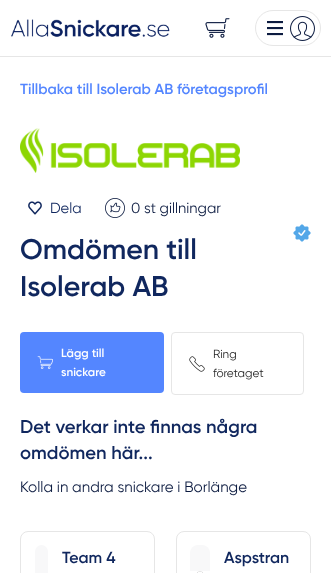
(async () => {
  const canvas = document.querySelector("canvas");
  canvas.width = 331;
  canvas.height = 573;
  const ctx = canvas.getContext("2d");
  ctx.miterLimit = 4;
  ctx.fontKerning = "normal";
  async function loadImage(src) {
    const img = new Image();
    img.src = src;
    await img.decode();
    return img;
  }

  ctx.fillStyle = "#ffffff";
  ctx.fillRect(0, 0, 331, 573);
  ctx.fillStyle = "#e6e6e6";
  ctx.fillRect(0, 56, 331, 1);
  ctx.drawImage(await loadImage("img/1.png"), 11, 19, 159, 18);
  ctx.drawImage(await loadImage("img/2.png"), 205, 18, 25, 20);
  ctx.beginPath();
  ctx.roundRect(255.5, 10.5, 65, 35, 17.5);
  ctx.strokeStyle = "#e6e6e6";
  ctx.stroke();
  ctx.drawImage(await loadImage("img/3.png"), 267, 21, 16, 15);
  ctx.drawImage(await loadImage("img/4.png"), 290, 16, 25, 25);
  ctx.drawImage(await loadImage("img/5.png"), 20, 128, 220, 45);
  ctx.drawImage(await loadImage("img/6.png"), 28, 201, 14, 14);
  ctx.drawImage(await loadImage("img/7.png"), 105, 198, 20, 20);
  ctx.drawImage(await loadImage("img/8.png"), 293, 224, 18, 18);
  ctx.fillStyle = "#5486ff";
  ctx.beginPath();
  ctx.roundRect(20, 332, 144, 61, 4);
  ctx.fill();
  ctx.drawImage(await loadImage("img/9.png"), 37, 356, 16, 13);
  ctx.beginPath();
  ctx.roundRect(171.5, 332.5, 132, 62, 3.5);
  ctx.stroke();
  ctx.drawImage(await loadImage("img/10.png"), 189, 356, 16, 16);
  ctx.beginPath();
  ctx.roundRect(20.5, 531.5, 134, 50, 7.5);
  ctx.stroke();
  ctx.fillStyle = "#f8f8f9";
  ctx.beginPath();
  ctx.roundRect(35, 545, 13, 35, 6.5);
  ctx.fill();
  ctx.beginPath();
  ctx.roundRect(176.5, 531.5, 134, 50, 7.5);
  ctx.stroke();
  ctx.beginPath();
  ctx.roundRect(190, 545, 20, 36, 8);
  ctx.fill();
  ctx.drawImage(await loadImage("img/11.png"), 190, 571, 20, 2);
  ctx.font = "600 14.75px Gilroy";
  ctx.fillStyle = "#5486ff";
  ctx.fillText("Tillbaka till Isolerab AB företagsprofil", 20, 94);
  ctx.font = "14.75px Gilroy";
  ctx.fillStyle = "#10275e";
  ctx.fillText("Dela", 50, 213);
  ctx.fillStyle = "#0c1b40";
  ctx.fillText("0 st gillningar", 131, 213);
  ctx.font = "600 28.5px Gilroy";
  ctx.fillStyle = "#10275e";
  ctx.fillText("Omdömen till", 20, 259);
  ctx.fillText("Isolerab AB", 20, 296);
  ctx.font = "600 11.75px Gilroy";
  ctx.fillStyle = "#ffffff";
  ctx.fillText("Lägg till", 61, 357);
  ctx.fillText("snickare", 61, 376);
  ctx.font = "11.75px Gilroy";
  ctx.fillStyle = "#242424";
  ctx.fillText("Ring", 213, 358);
  ctx.fillText("företaget", 213, 377);
  ctx.font = "600 18.5px Gilroy";
  ctx.fillStyle = "#10275e";
  ctx.fillText("Det verkar inte finnas några", 20, 433);
  ctx.fillText("omdömen här...", 20, 459);
  ctx.font = "15.1px Gilroy";
  ctx.fillStyle = "#0c1b40";
  ctx.fillText("Kolla in andra snickare i Borlänge", 20, 492);
  ctx.font = "600 16px Gilroy";
  ctx.fillStyle = "#10275e";
  ctx.fillText("Team 4", 62, 563);
  ctx.fillText("Aspstran", 224, 563);
})();
